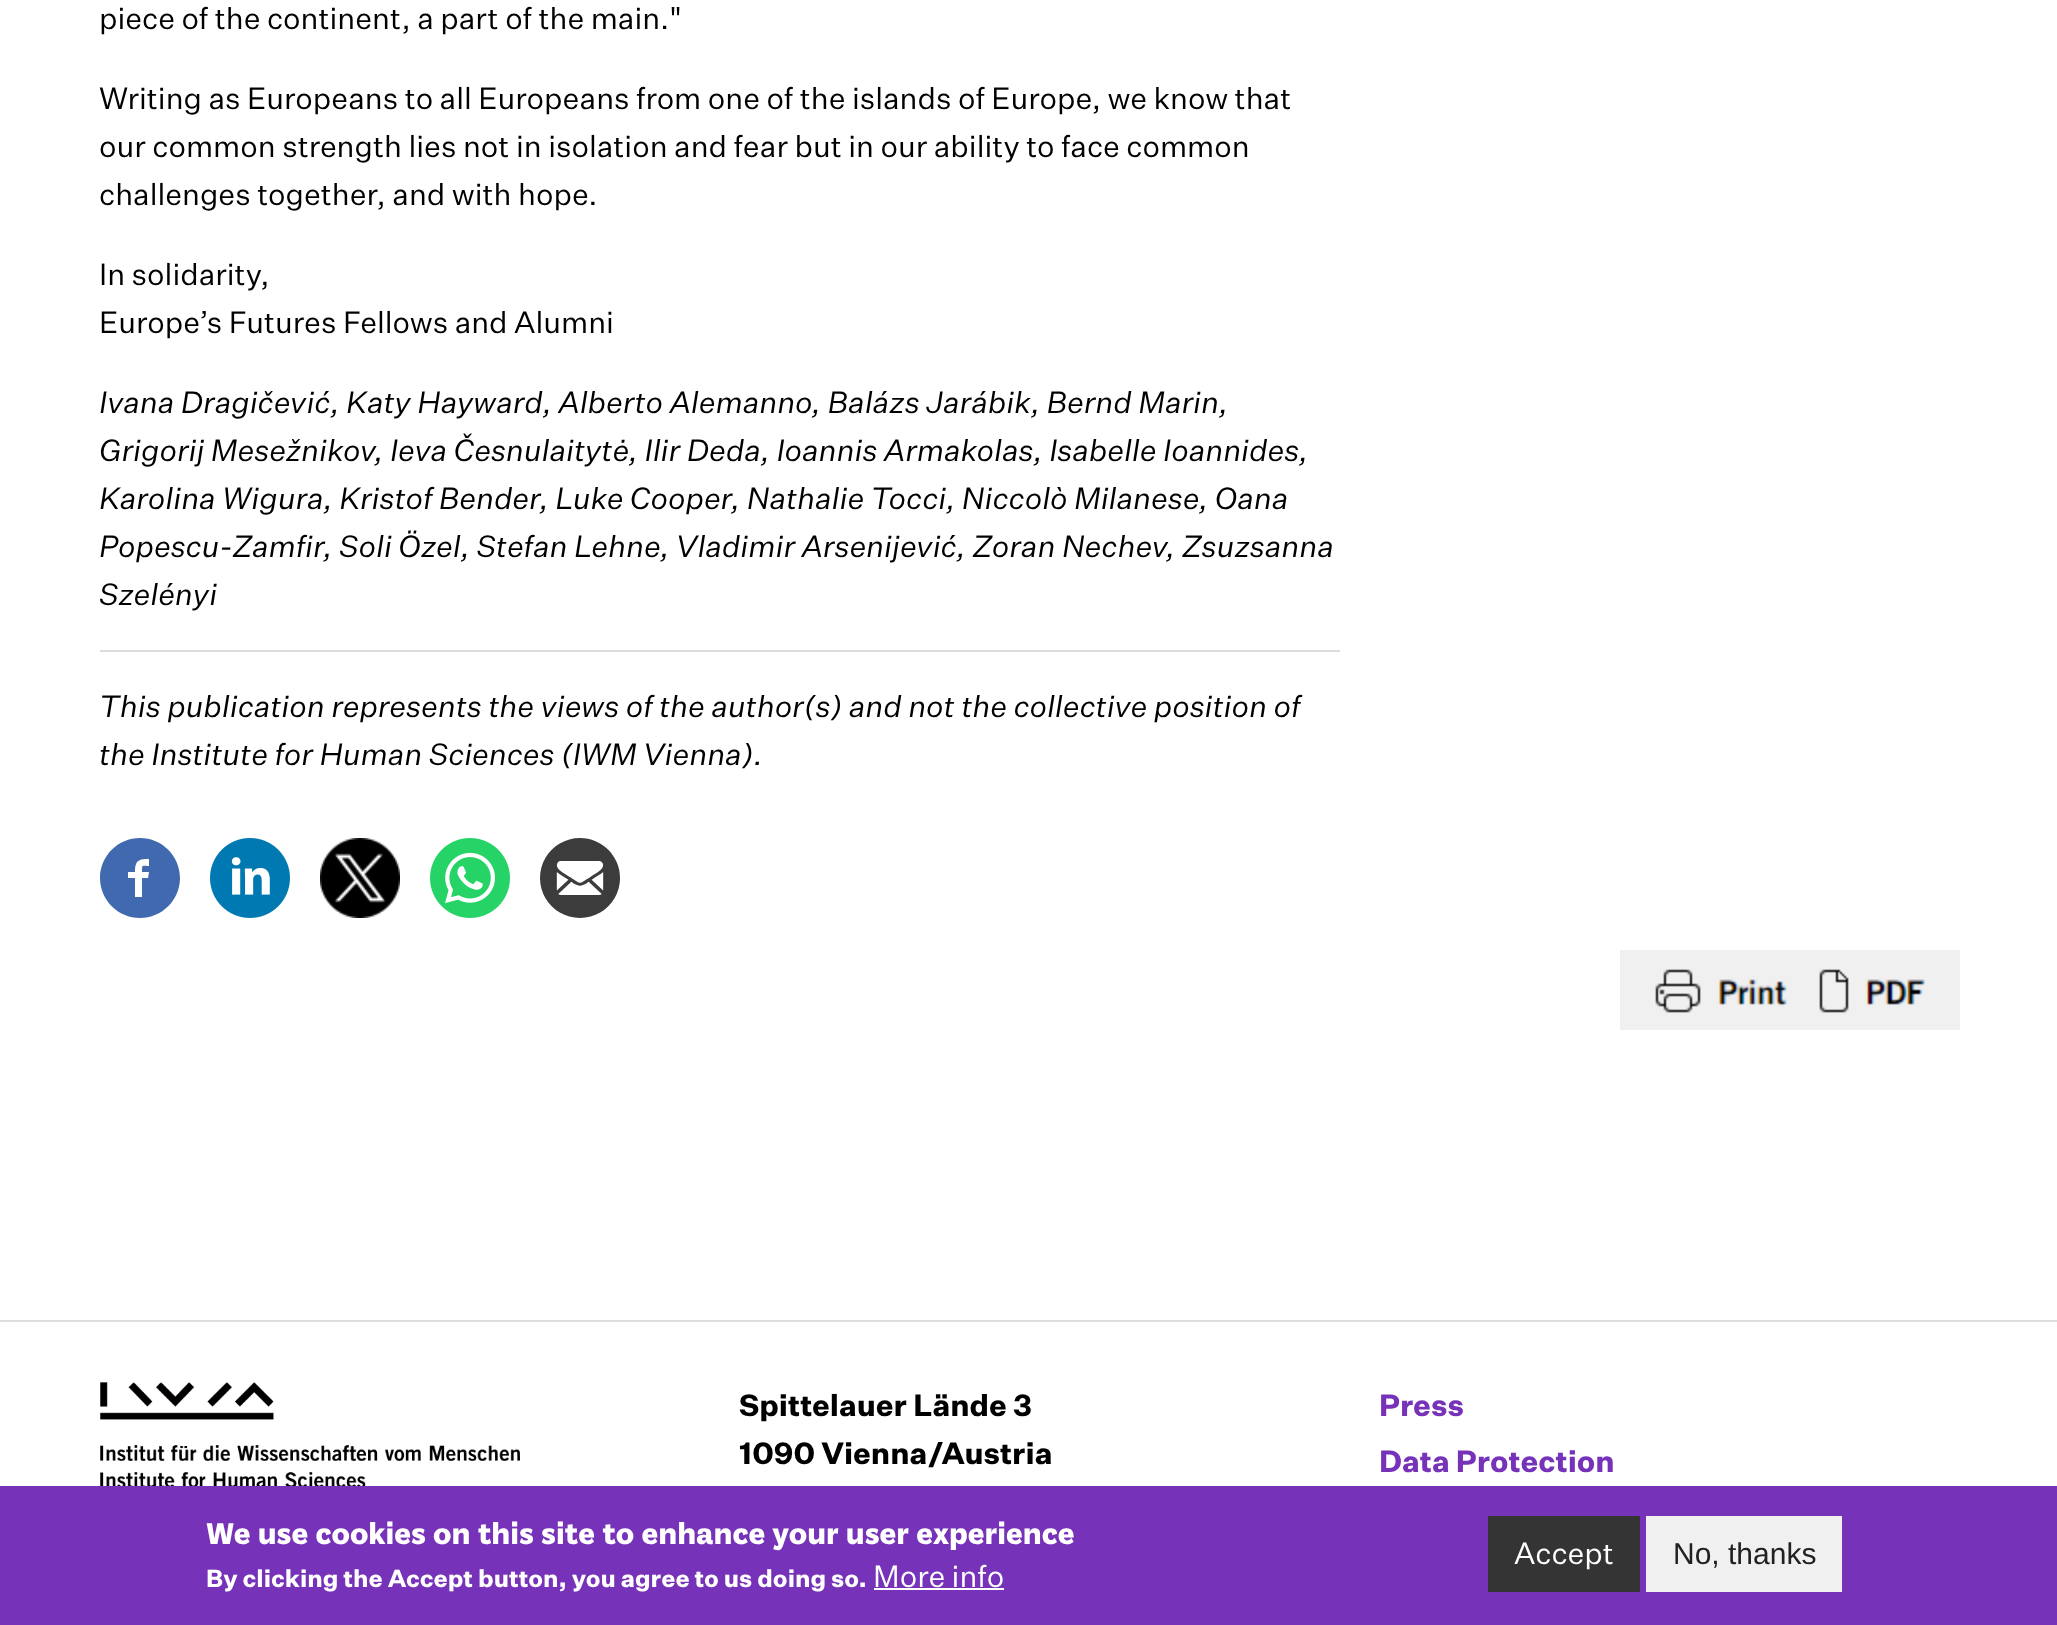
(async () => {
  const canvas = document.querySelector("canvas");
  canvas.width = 2057;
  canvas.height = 1625;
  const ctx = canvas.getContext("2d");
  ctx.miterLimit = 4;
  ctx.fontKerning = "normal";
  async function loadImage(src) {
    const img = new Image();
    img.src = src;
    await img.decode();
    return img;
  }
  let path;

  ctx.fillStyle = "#ffffff";
  ctx.fillRect(0, 0, 2057, 1625);
  ctx.fillStyle = "#dddddd";
  ctx.fillRect(100, 650, 1240, 2);
  ctx.fillStyle = "#4169af";
  path = new Path2D("M140 838C118 838 100 856 100 878C100 900 118 918 140 918C162 918 180 900 180 878C180 856 162 838 140 838ZM149 866C142 866 142 864 142 872H149L148 878H142V897H135V878H128V872H135C135 860 139 859 149 859Z");
  ctx.fill(path);
  ctx.drawImage(await loadImage("img/1.png"), 210, 838, 80, 80);
  ctx.drawImage(await loadImage("img/2.png"), 320, 838, 80, 80);
  ctx.drawImage(await loadImage("img/3.png"), 430, 838, 80, 80);
  ctx.drawImage(await loadImage("img/4.png"), 540, 838, 80, 80);
  ctx.drawImage(await loadImage("img/5.png"), 1620, 950, 340, 80);
  ctx.fillStyle = "#dddddd";
  ctx.fillRect(0, 1320, 2057, 2);
  ctx.drawImage(await loadImage("img/6.png"), 100, 1382, 420, 104);
  for (const [x, y, w, h, color] of [
    [0, 1486, 2057, 139, "#7632b8"],
    [874, 1588, 130, 2, "#ffffff"],
    [1488, 1516, 152, 76, "#343434"],
    [1646, 1516, 196, 76, "#f0f0f0"],
  ]) {
    ctx.fillStyle = color;
    ctx.fillRect(x, y, w, h);
  }
  ctx.font = "30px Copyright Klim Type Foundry";
  ctx.fillStyle = "#000000";
  for (const [text, x, y] of [
    ["piece of the continent, a part of the main.\"", 99, 29],
    ["Writing as Europeans to all Europeans from one of the islands of Europe, we know that", 99, 109],
    ["our common strength lies not in isolation and fear but in our ability to face common", 99, 157],
    ["challenges together, and with hope.", 99, 205],
    ["In solidarity,", 99, 285],
    ["Europe’s Futures Fellows and Alumni", 99, 333],
  ]) {
    ctx.fillText(text, x, y);
  }
  ctx.font = "italic 30px Copyright Klim Type Foundry";
  for (const [text, x, y] of [
    ["Ivana Dragičević, Katy Hayward, Alberto Alemanno, Balázs Jarábik, Bernd Marin,", 99, 413],
    ["Grigorij Mesežnikov, Ieva Česnulaitytė, Ilir Deda, Ioannis Armakolas, Isabelle Ioannides,", 99, 461],
    ["Karolina Wigura, Kristof Bender, Luke Cooper, Nathalie Tocci, Niccolò Milanese, Oana", 99, 509],
    ["Popescu-Zamfir, Soli Özel, Stefan Lehne, Vladimir Arsenijević, Zoran Nechev, Zsuzsanna", 99, 557],
    ["Szelényi", 99, 605],
    ["This publication represents the views of the author(s) and not the collective position of", 99, 717],
    ["the Institute for Human Sciences (IWM Vienna).", 99, 765],
  ]) {
    ctx.fillText(text, x, y);
  }
  ctx.font = "bold 30px Copyright Klim Type Foundry";
  ctx.fillText("Spittelauer Lände 3", 739, 1416);
  ctx.fillText("1090 Vienna/Austria", 739, 1464);
  ctx.fillStyle = "#7632b8";
  ctx.fillText("Press", 1379, 1416);
  ctx.fillText("Data Protection", 1379, 1472);
  ctx.font = "bold 32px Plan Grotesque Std";
  ctx.fillStyle = "#ffffff";
  ctx.fillText("We use cookies on this site to enhance your user experience", 206, 1544);
  ctx.font = "bold 24px Copyright Klim Type Foundry";
  ctx.fillText("By clicking the Accept button, you agree to us doing so.", 206, 1587);
  ctx.font = "30px Copyright Klim Type Foundry";
  ctx.fillText("More info", 873, 1587);
  ctx.fillText("Accept", 1514, 1564);
  ctx.font = "30px Liberation Sans";
  ctx.fillStyle = "#212121";
  ctx.fillText("No, thanks", 1673, 1564);
})();
